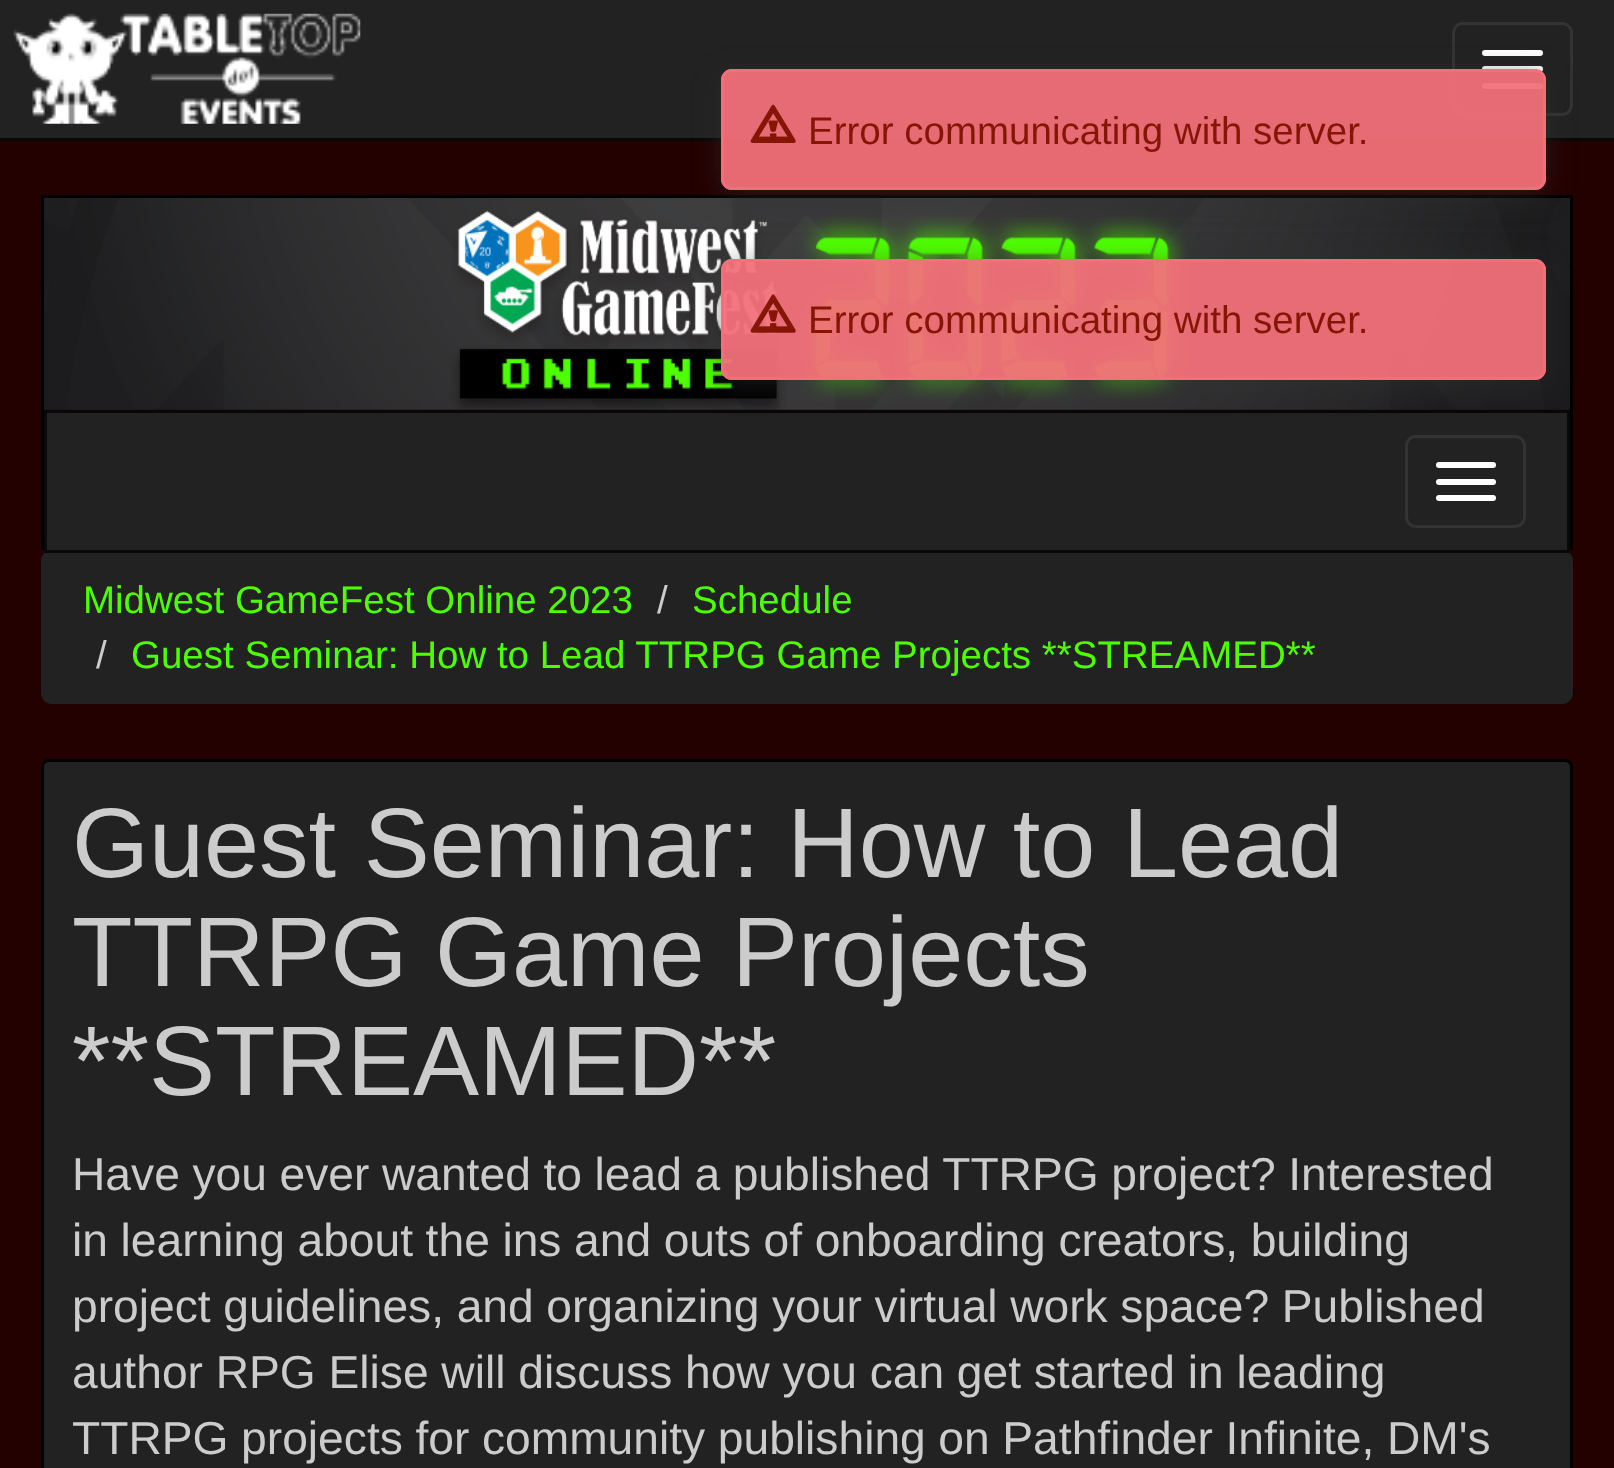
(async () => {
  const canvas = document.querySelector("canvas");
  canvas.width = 1614;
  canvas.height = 1468;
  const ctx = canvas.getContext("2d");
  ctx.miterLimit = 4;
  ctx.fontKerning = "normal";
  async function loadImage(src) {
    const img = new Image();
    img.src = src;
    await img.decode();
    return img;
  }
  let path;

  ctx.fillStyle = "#240101";
  ctx.fillRect(0, 0, 1614, 1468);
  ctx.fillStyle = "#222222";
  ctx.fillRect(0, 0, 1614, 138);
  ctx.fillStyle = "#080808";
  ctx.fillRect(0, 138, 1614, 3);
  ctx.drawImage(await loadImage("img/1.png"), 13, 13, 348, 111);
  ctx.beginPath();
  ctx.roundRect(1453.5, 23.5, 118, 91, 9.5);
  ctx.strokeStyle = "#333333";
  ctx.lineWidth = 3;
  ctx.stroke();
  ctx.fillStyle = "#ffffff";
  ctx.beginPath();
  ctx.roundRect(1482, 50, 61, 6, 3);
  ctx.fill();
  ctx.beginPath();
  ctx.roundRect(1482, 66, 61, 6, 3);
  ctx.fill();
  ctx.beginPath();
  ctx.roundRect(1482, 83, 61, 6, 3);
  ctx.fill();
  ctx.drawImage(await loadImage("img/4.png"), 44, 198, 1526, 212);
  ctx.strokeStyle = "#000000";
  ctx.strokeRect(42.5, 196.5, 1529, 352);
  ctx.save();
  path = new Path2D("M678 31H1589V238H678ZM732 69H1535C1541 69 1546 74 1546 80V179C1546 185 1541 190 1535 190H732C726 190 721 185 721 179V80C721 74 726 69 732 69Z");
  ctx.clip(path, "evenodd");
  ctx.fillStyle = "rgba(50, 50, 50, 0.47)";
  ctx.filter = "blur(14px)";
  ctx.beginPath();
  ctx.roundRect(721, 74, 825, 121, 11);
  ctx.fill();
  ctx.filter = "none";
  ctx.restore();
  ctx.fillStyle = "rgba(242, 112, 121, 0.95)";
  ctx.beginPath();
  ctx.roundRect(721, 69, 825, 121, 11);
  ctx.fill();
  ctx.beginPath();
  ctx.roundRect(722.5, 70.5, 822, 118, 9.5);
  ctx.strokeStyle = "rgba(242, 112, 121, 0.95)";
  ctx.stroke();
  ctx.drawImage(await loadImage("img/2.png"), 750, 104, 46, 39);
  ctx.fillStyle = "#222222";
  ctx.beginPath();
  ctx.roundRect(41, 550, 1532, 154, 11);
  ctx.fill();
  ctx.beginPath();
  ctx.rect(45.5, 411.5, 1523, 140);
  ctx.fill();
  ctx.strokeStyle = "#080808";
  ctx.stroke();
  ctx.save();
  path = new Path2D("M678 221H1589V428H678ZM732 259H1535C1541 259 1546 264 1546 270V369C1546 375 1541 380 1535 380H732C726 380 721 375 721 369V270C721 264 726 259 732 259Z");
  ctx.clip(path, "evenodd");
  ctx.fillStyle = "rgba(50, 50, 50, 0.47)";
  ctx.filter = "blur(14px)";
  ctx.beginPath();
  ctx.roundRect(721, 264, 825, 121, 11);
  ctx.fill();
  ctx.filter = "none";
  ctx.restore();
  ctx.fillStyle = "rgba(242, 112, 121, 0.95)";
  ctx.beginPath();
  ctx.roundRect(721, 259, 825, 121, 11);
  ctx.fill();
  ctx.beginPath();
  ctx.roundRect(722.5, 260.5, 822, 118, 9.5);
  ctx.strokeStyle = "rgba(242, 112, 121, 0.95)";
  ctx.stroke();
  ctx.drawImage(await loadImage("img/3.png"), 750, 294, 46, 39);
  ctx.beginPath();
  ctx.roundRect(1406.5, 436.5, 118, 90, 9.5);
  ctx.strokeStyle = "#333333";
  ctx.stroke();
  ctx.fillStyle = "#ffffff";
  ctx.beginPath();
  ctx.roundRect(1436, 462, 60, 6, 3);
  ctx.fill();
  ctx.beginPath();
  ctx.roundRect(1436, 479, 60, 6, 3);
  ctx.fill();
  ctx.beginPath();
  ctx.roundRect(1436, 495, 60, 6, 3);
  ctx.fill();
  ctx.fillStyle = "#222222";
  ctx.beginPath();
  ctx.roundRect(42.5, 760.5, 1529, 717, 6.5);
  ctx.fill();
  ctx.strokeStyle = "#000000";
  ctx.stroke();
  ctx.font = "38.5px Liberation Sans";
  ctx.fillStyle = "#851606";
  ctx.fillText("Error communicating with server.", 808, 144);
  ctx.fillText("Error communicating with server.", 808, 333);
  ctx.fillStyle = "#4eff00";
  ctx.fillText("Midwest GameFest Online 2023", 83, 613);
  ctx.fillStyle = "#cccccc";
  ctx.fillText("/", 657, 613);
  ctx.fillStyle = "#4eff00";
  ctx.fillText("Schedule", 692, 613);
  ctx.fillStyle = "#cccccc";
  ctx.fillText("/", 96, 668);
  ctx.fillStyle = "#4eff00";
  ctx.fillText("Guest Seminar: How to Lead TTRPG Game Projects **STREAMED**", 131, 668);
  ctx.font = "99px Liberation Sans";
  ctx.fillStyle = "#cccccc";
  for (const [text, x, y] of [
    ["Guest Seminar: How to Lead", 72, 877],
    ["TTRPG Game Projects", 72, 986],
    ["**STREAMED**", 72, 1095],
  ]) {
    ctx.fillText(text, x, y);
  }
  ctx.wordSpacing = "-0.25px";
  ctx.font = "46.2px Liberation Sans";
  for (const [text, x, y] of [
    ["Have you ever wanted to lead a published TTRPG project? Interested", 72, 1190],
    ["in learning about the ins and outs of onboarding creators, building", 72, 1256],
    ["project guidelines, and organizing your virtual work space? Published", 72, 1322],
  ]) {
    ctx.fillText(text, x, y);
  }
  ctx.wordSpacing = "-0.1px";
  ctx.fillText("author RPG Elise will discuss how you can get started in leading", 72, 1388);
  ctx.wordSpacing = "-0.25px";
  ctx.fillText("TTRPG projects for community publishing on Pathfinder Infinite, DM's", 72, 1454);
})();
